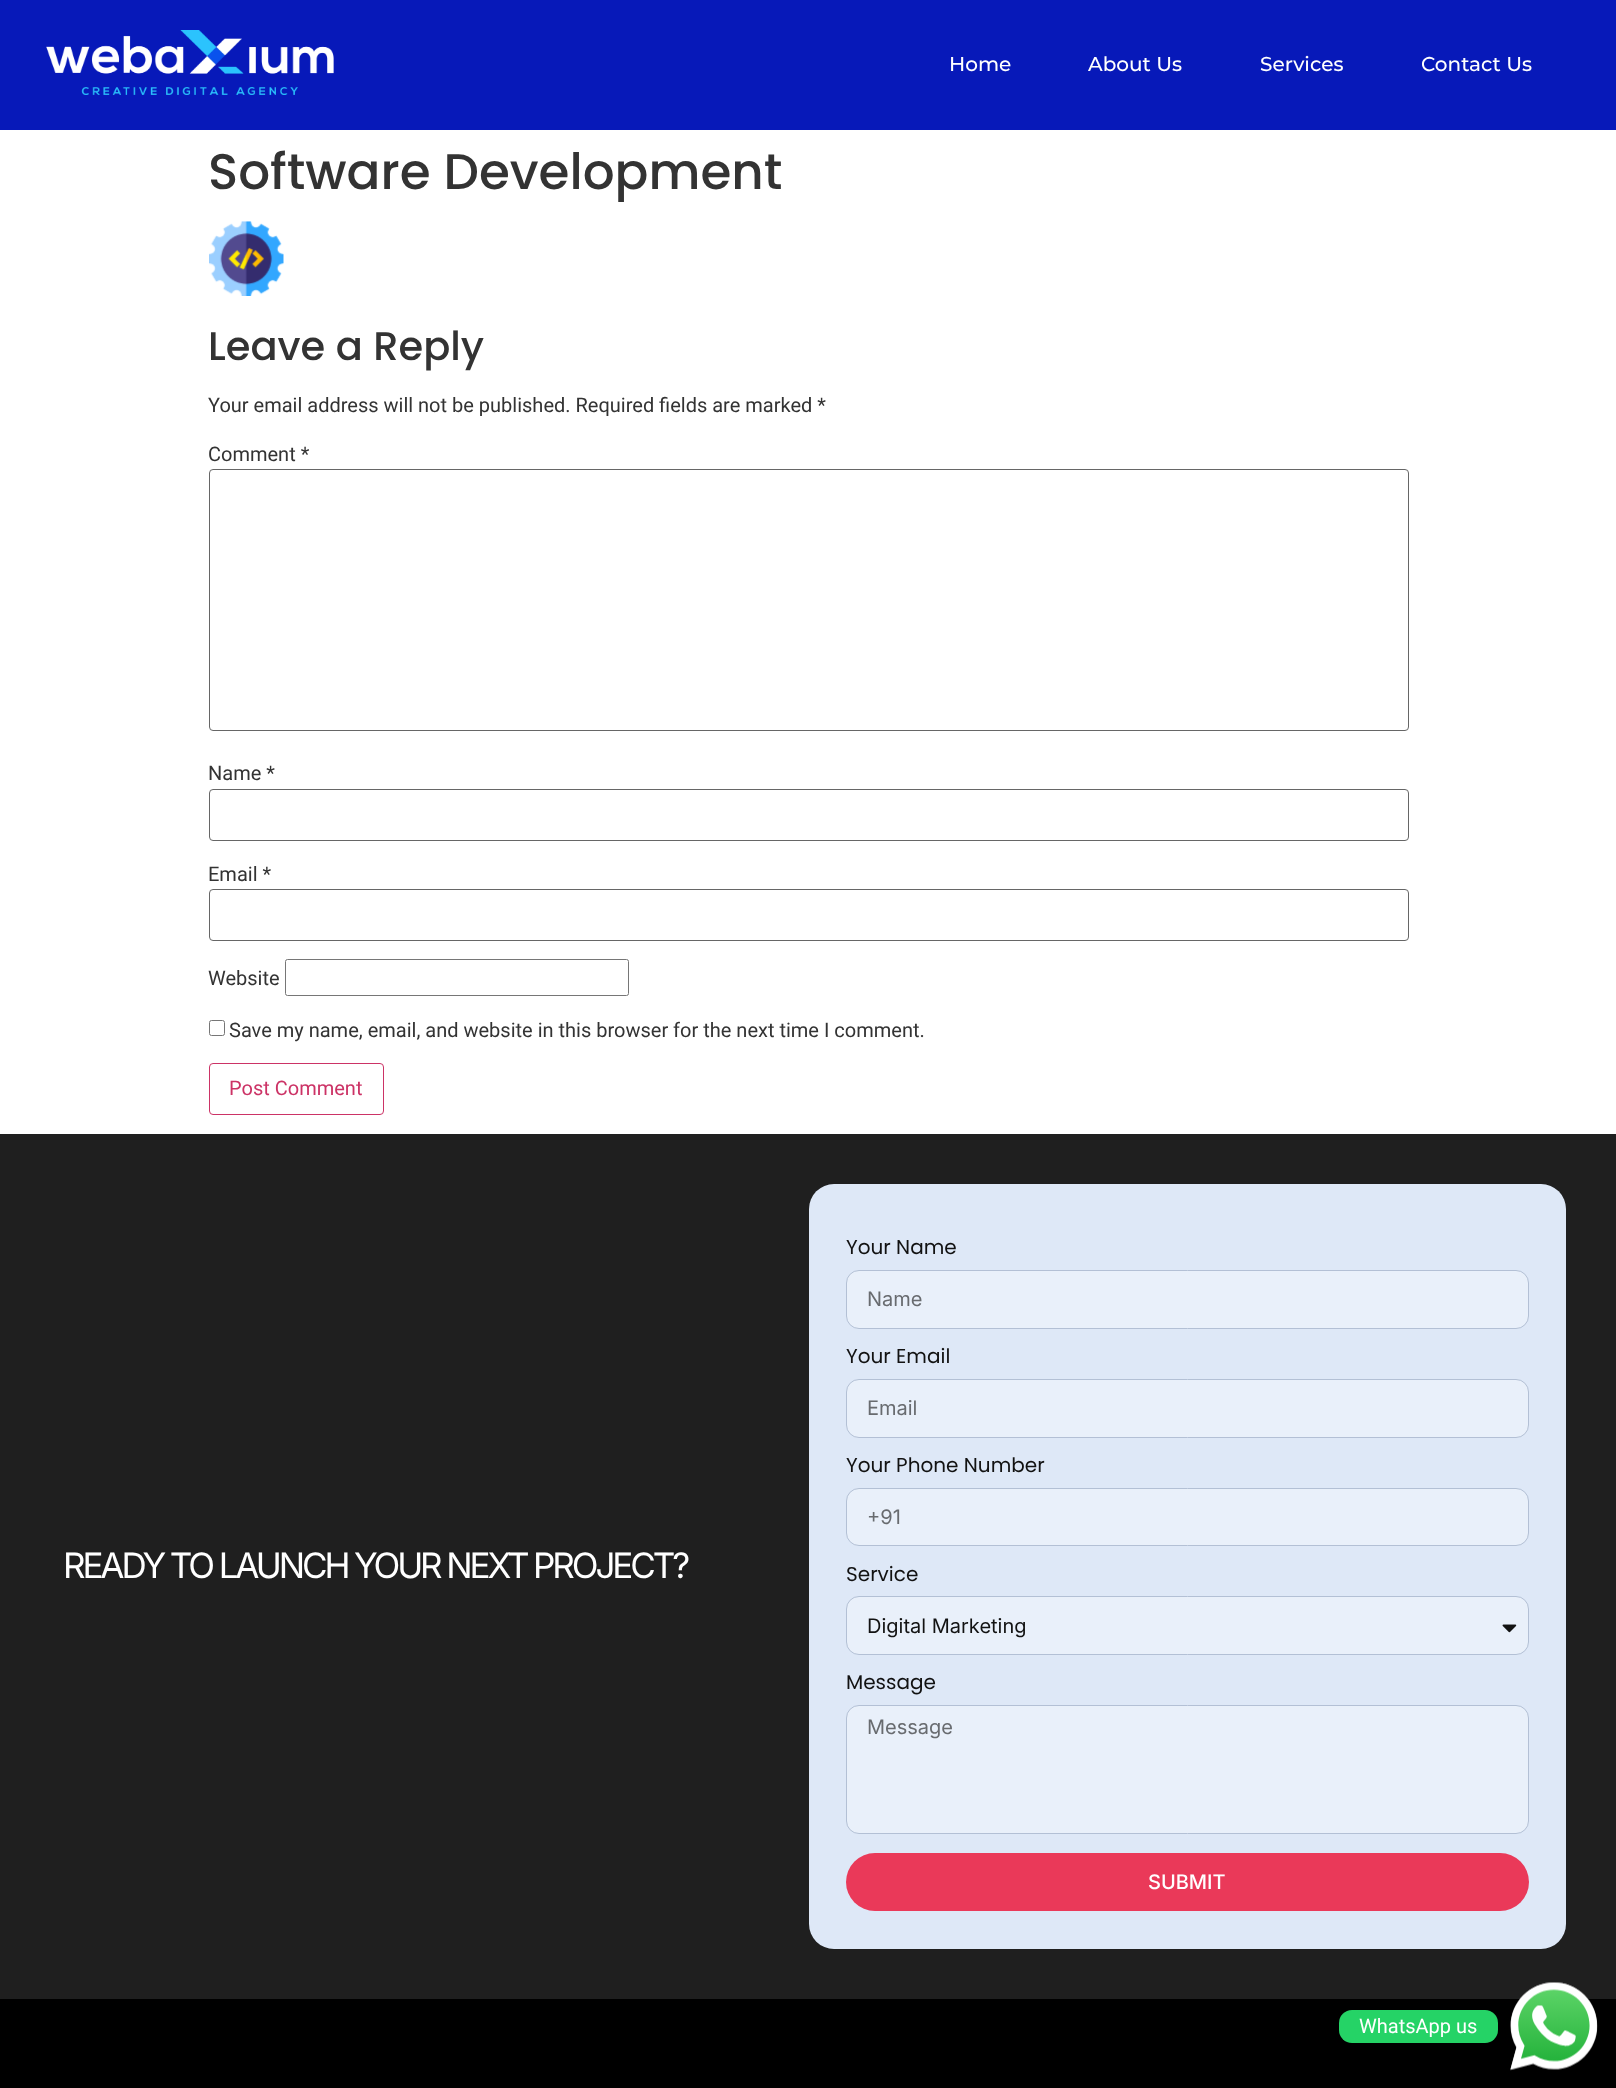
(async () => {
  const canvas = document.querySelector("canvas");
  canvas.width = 1616;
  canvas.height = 2088;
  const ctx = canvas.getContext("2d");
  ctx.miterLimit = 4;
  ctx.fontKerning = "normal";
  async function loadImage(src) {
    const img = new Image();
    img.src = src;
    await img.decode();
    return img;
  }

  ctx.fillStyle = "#ffffff";
  ctx.fillRect(0, 0, 1616, 2088);
  ctx.fillStyle = "#0719b9";
  ctx.fillRect(0, 0, 1616, 130);
  ctx.drawImage(await loadImage("img/1.png"), 46, 30, 288, 65);
  ctx.drawImage(await loadImage("img/2.png"), 209, 221, 75, 75);
  ctx.beginPath();
  ctx.roundRect(209.5, 469.5, 1199, 261, 3.5);
  ctx.strokeStyle = "#666666";
  ctx.stroke();
  ctx.beginPath();
  ctx.roundRect(209.5, 789.5, 1199, 51, 3.5);
  ctx.stroke();
  ctx.beginPath();
  ctx.roundRect(209.5, 889.5, 1199, 51, 3.5);
  ctx.stroke();
  ctx.beginPath();
  ctx.roundRect(285.5, 959.5, 343, 36, 2);
  ctx.strokeStyle = "#767676";
  ctx.stroke();
  ctx.beginPath();
  ctx.roundRect(209.5, 1020.5, 15, 15, 2);
  ctx.stroke();
  ctx.beginPath();
  ctx.roundRect(209.5, 1063.5, 174, 51, 3.5);
  ctx.strokeStyle = "#cc3366";
  ctx.stroke();
  ctx.fillStyle = "#1f1f1f";
  ctx.fillRect(0, 1134, 1616, 865);
  ctx.fillStyle = "#dee8f7";
  ctx.beginPath();
  ctx.roundRect(809, 1184, 757, 765, 25);
  ctx.fill();
  ctx.fillStyle = "#e9f0fa";
  ctx.beginPath();
  ctx.roundRect(846.5, 1270.5, 682, 58, 12.5);
  ctx.fill();
  ctx.strokeStyle = "#b3c0d5";
  ctx.stroke();
  ctx.beginPath();
  ctx.roundRect(846.5, 1379.5, 682, 58, 12.5);
  ctx.fill();
  ctx.stroke();
  ctx.beginPath();
  ctx.roundRect(846.5, 1488.5, 682, 57, 12.5);
  ctx.fill();
  ctx.stroke();
  ctx.beginPath();
  ctx.roundRect(846.5, 1596.5, 682, 58, 12.5);
  ctx.fill();
  ctx.stroke();
  ctx.drawImage(await loadImage("img/3.png"), 1502, 1624, 15, 9);
  ctx.beginPath();
  ctx.roundRect(846.5, 1705.5, 682, 128, 12.5);
  ctx.fill();
  ctx.stroke();
  ctx.fillStyle = "#ea3959";
  ctx.beginPath();
  ctx.roundRect(846, 1853, 683, 58, 29);
  ctx.fill();
  ctx.fillStyle = "#000000";
  ctx.fillRect(0, 1999, 1616, 89);
  ctx.fillStyle = "#25d366";
  ctx.beginPath();
  ctx.roundRect(1339, 2010, 159, 33, 13);
  ctx.fill();
  ctx.drawImage(await loadImage("img/4.png"), 1510, 1982, 88, 89);
  ctx.font = "500 20px Montserrat";
  ctx.fillStyle = "#ffffff";
  for (const [text, x, y] of [
    ["Home", 949, 71],
    ["About Us", 1088, 71],
    ["Services", 1260, 71],
    ["Contact Us", 1421, 71],
  ]) {
    ctx.fillText(text, x, y);
  }
  ctx.font = "500 50px Poppins";
  ctx.fillStyle = "#333333";
  ctx.fillText("Software Development", 208, 189);
  ctx.font = "500 40px Poppins";
  ctx.fillText("Leave a Reply", 208, 360);
  ctx.font = "20px Roboto";
  for (const [text, x, y] of [
    ["Your email address will not be published. Required fields are marked *", 208, 412],
    ["Comment *", 208, 461],
    ["Name *", 208, 780],
    ["Email *", 208, 881],
    ["Website", 208, 985],
    ["Save my name, email, and website in this browser for the next time I comment.", 229, 1037],
  ]) {
    ctx.fillText(text, x, y);
  }
  ctx.fillStyle = "#cc3366";
  ctx.fillText("Post Comment", 229, 1095);
  ctx.letterSpacing = "-3.1px";
  ctx.font = "35px Inter";
  ctx.fillStyle = "#ffffff";
  ctx.fillText("READY TO LAUNCH YOUR NEXT PROJECT?", 63, 1578);
  ctx.letterSpacing = "0px";
  ctx.font = "20px Poppins";
  ctx.fillStyle = "#121212";
  ctx.fillText("Your Name", 846, 1254);
  ctx.font = "20px Inter";
  ctx.fillStyle = "#686b6f";
  ctx.fillText("Name", 867, 1306);
  ctx.font = "20px Poppins";
  ctx.fillStyle = "#121212";
  ctx.fillText("Your Email", 846, 1363);
  ctx.font = "20px Inter";
  ctx.fillStyle = "#686b6f";
  ctx.fillText("Email", 867, 1415);
  ctx.font = "20px Poppins";
  ctx.fillStyle = "#121212";
  ctx.fillText("Your Phone Number", 846, 1472);
  ctx.font = "20px Inter";
  ctx.fillStyle = "#686b6f";
  ctx.fillText("+91", 867, 1524);
  ctx.font = "20px Poppins";
  ctx.fillStyle = "#121212";
  ctx.fillText("Service", 846, 1581);
  ctx.font = "20px Inter";
  ctx.fillText("Digital Marketing", 867, 1633);
  ctx.font = "20px Poppins";
  ctx.fillText("Message", 846, 1689);
  ctx.font = "20px Inter";
  ctx.fillStyle = "#686b6f";
  ctx.fillText("Message", 867, 1734);
  ctx.font = "500 20px Inter";
  ctx.fillStyle = "#ffffff";
  ctx.fillText("SUBMIT", 1148, 1889);
  ctx.font = "20px Roboto";
  ctx.fillText("WhatsApp us", 1359, 2033);
})();
